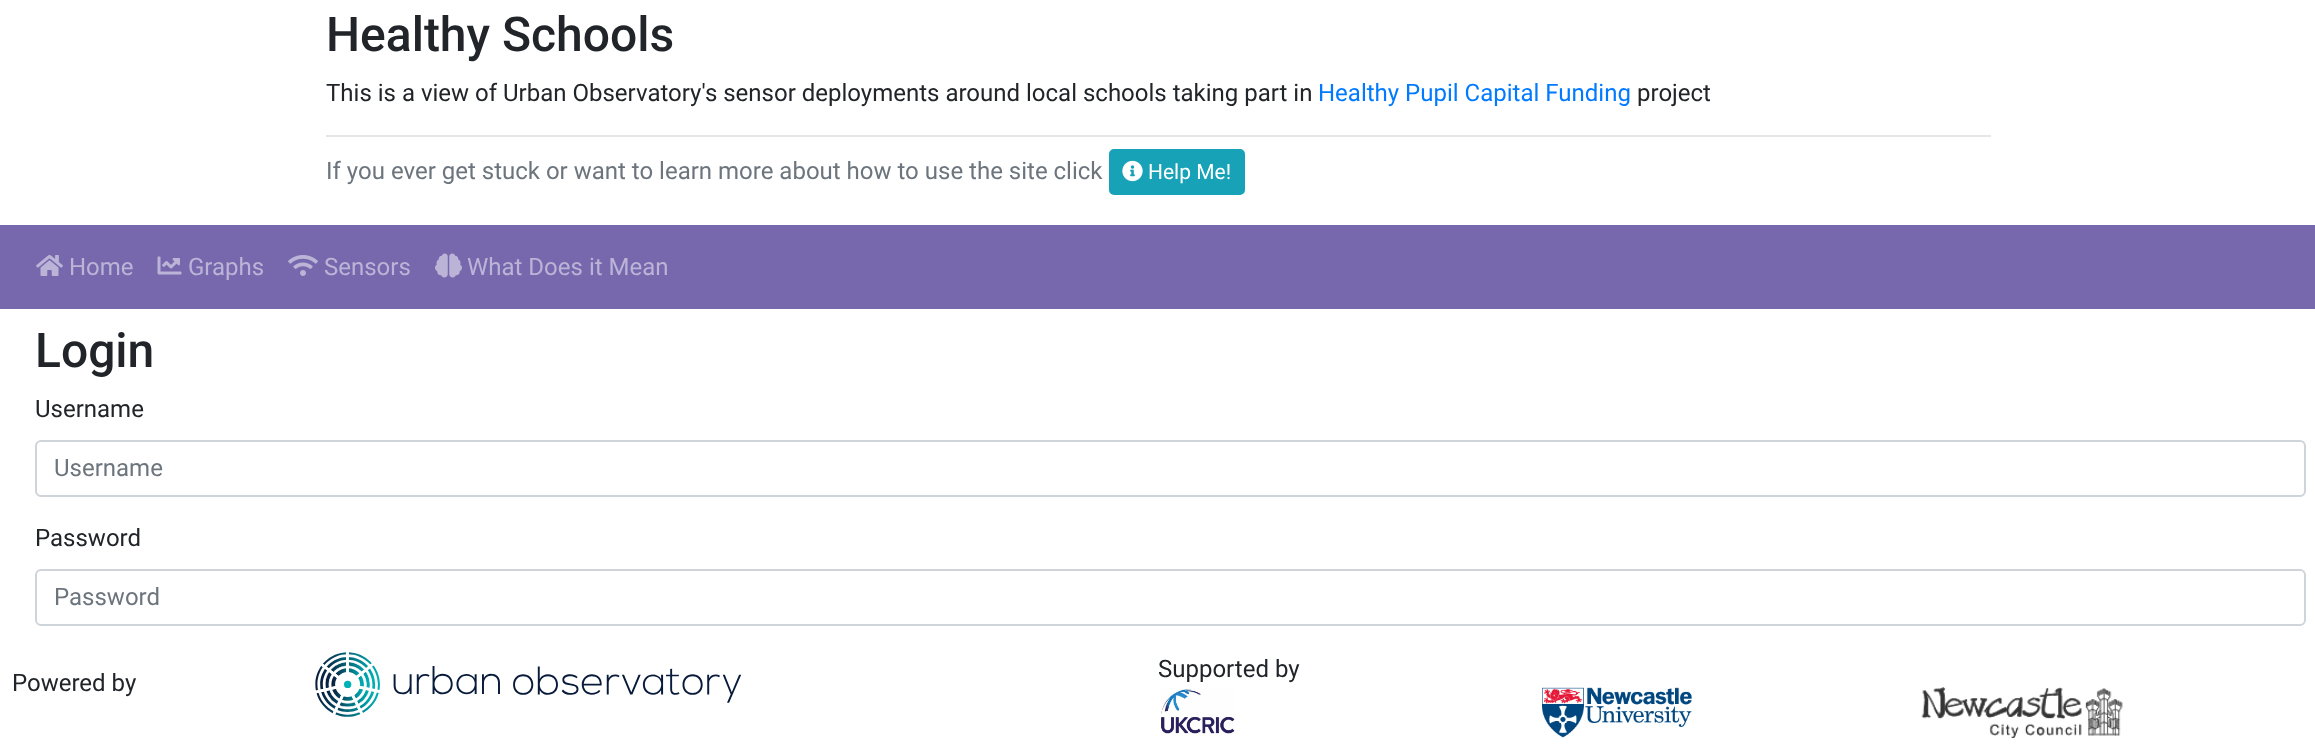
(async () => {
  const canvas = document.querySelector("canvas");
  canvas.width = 2315;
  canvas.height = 750;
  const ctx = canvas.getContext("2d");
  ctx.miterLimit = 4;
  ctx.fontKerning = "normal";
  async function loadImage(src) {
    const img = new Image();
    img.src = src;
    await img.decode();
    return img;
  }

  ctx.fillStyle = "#ffffff";
  ctx.fillRect(0, 0, 2315, 750);
  ctx.fillStyle = "#e6e6e6";
  ctx.fillRect(326, 135, 1665, 2);
  ctx.fillStyle = "#17a2b8";
  ctx.beginPath();
  ctx.roundRect(1110, 150, 134, 44, 4);
  ctx.fill();
  ctx.strokeStyle = "#17a2b8";
  ctx.lineWidth = 2;
  ctx.stroke();
  ctx.drawImage(await loadImage("img/1.png"), 1122, 160, 21, 22);
  ctx.fillStyle = "#7768ae";
  ctx.fillRect(0, 225, 2315, 84);
  ctx.drawImage(await loadImage("img/2.png"), 36, 255, 27, 21);
  ctx.drawImage(await loadImage("img/3.png"), 157, 256, 25, 19);
  ctx.drawImage(await loadImage("img/4.png"), 288, 255, 30, 21);
  ctx.drawImage(await loadImage("img/5.png"), 435, 253, 27, 25);
  ctx.beginPath();
  ctx.roundRect(36, 441, 2269, 55, 5);
  ctx.strokeStyle = "#ced4da";
  ctx.stroke();
  ctx.beginPath();
  ctx.roundRect(36, 570, 2269, 55, 5);
  ctx.stroke();
  ctx.drawImage(await loadImage("img/6.png"), 315, 652, 427, 65);
  ctx.drawImage(await loadImage("img/7.png"), 1161, 689, 74, 45);
  ctx.drawImage(await loadImage("img/8.png"), 1542, 687, 150, 51);
  ctx.drawImage(await loadImage("img/9.png"), 1921, 687, 202, 51);
  ctx.font = "500 48px Roboto";
  ctx.fillStyle = "#212529";
  ctx.fillText("Healthy Schools", 326, 51);
  ctx.font = "24px Roboto";
  ctx.fillText("This is a view of Urban Observatory's sensor deployments around local schools taking part in", 326, 101);
  ctx.fillStyle = "#007bff";
  ctx.fillText("Healthy Pupil Capital Funding", 1318, 101);
  ctx.fillStyle = "#212529";
  ctx.fillText("project", 1637, 101);
  ctx.fillStyle = "#6c757d";
  ctx.fillText("If you ever get stuck or want to learn more about how to use the site click", 326, 179);
  ctx.font = "21px Roboto";
  ctx.fillStyle = "#ffffff";
  ctx.fillText("Help Me!", 1148, 179);
  ctx.font = "24px Roboto";
  ctx.fillStyle = "#bbb4d7";
  for (const [text, x, y] of [
    ["Home", 69, 275],
    ["Graphs", 188, 275],
    ["Sensors", 324, 275],
    ["What Does it Mean", 467, 275],
  ]) {
    ctx.fillText(text, x, y);
  }
  ctx.font = "500 48px Roboto";
  ctx.fillStyle = "#212529";
  ctx.fillText("Login", 35, 367);
  ctx.font = "24px Roboto";
  ctx.fillText("Username", 35, 417);
  ctx.fillStyle = "#6c757d";
  ctx.fillText("Username", 54, 476);
  ctx.fillStyle = "#212529";
  ctx.fillText("Password", 35, 546);
  ctx.fillStyle = "#6c757d";
  ctx.fillText("Password", 54, 605);
  ctx.fillStyle = "#212529";
  ctx.fillText("Powered by", 12, 691);
  ctx.fillText("Supported by", 1158, 677);
})();
